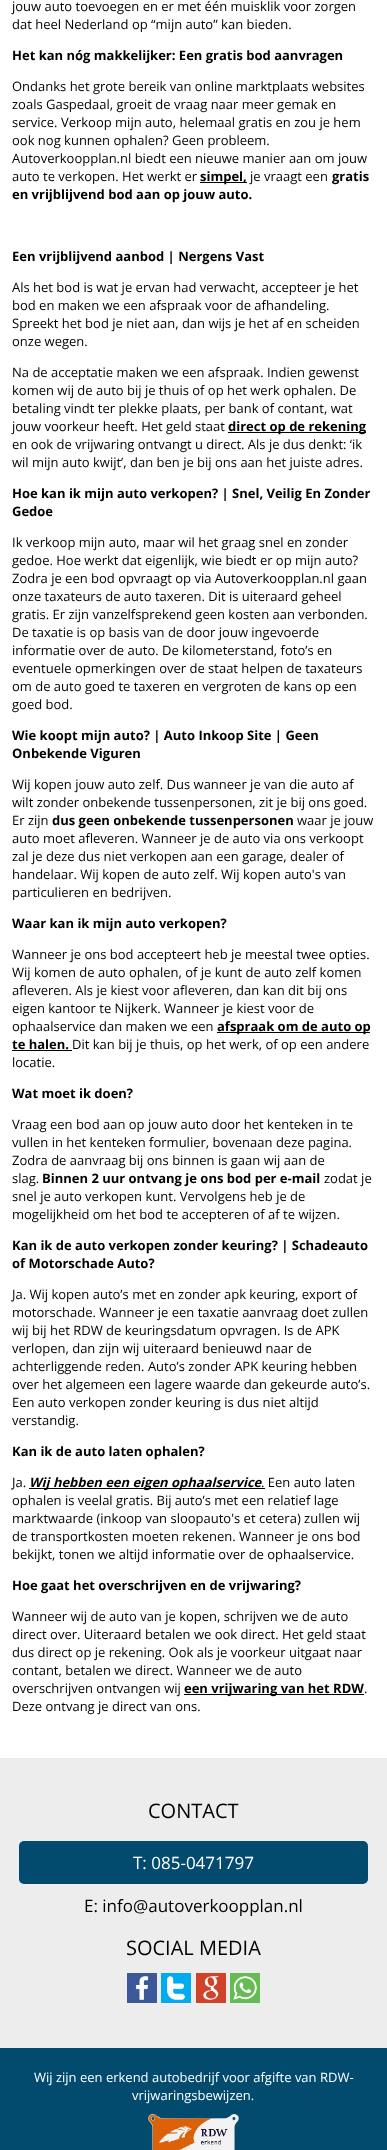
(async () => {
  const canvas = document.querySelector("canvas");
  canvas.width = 387;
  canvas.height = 2150;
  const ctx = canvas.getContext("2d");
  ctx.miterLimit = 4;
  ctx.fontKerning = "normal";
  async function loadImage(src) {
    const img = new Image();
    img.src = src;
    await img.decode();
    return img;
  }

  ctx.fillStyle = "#ffffff";
  ctx.fillRect(0, 0, 387, 2150);
  for (const [x, y, w, h, color] of [
    [200, 182, 47, 1, "#000000"],
    [228, 432, 138, 1, "#000000"],
    [217, 1032, 153, 1, "#000000"],
    [12, 1050, 60, 1, "#000000"],
    [29, 1488, 232, 1, "#000000"],
    [261, 1488, 4, 1, "#000000"],
    [184, 1694, 180, 1, "#000000"],
    [0, 1758, 387, 290, "#ededed"],
  ]) {
    ctx.fillStyle = color;
    ctx.fillRect(x, y, w, h);
  }
  ctx.fillStyle = "#024b6f";
  ctx.beginPath();
  ctx.roundRect(19, 1841, 349, 43, 5);
  ctx.fill();
  ctx.drawImage(await loadImage("img/1.png"), 127, 1973, 30, 30);
  ctx.drawImage(await loadImage("img/2.png"), 161, 1973, 30, 30);
  ctx.drawImage(await loadImage("img/3.png"), 196, 1973, 30, 30);
  ctx.drawImage(await loadImage("img/4.png"), 230, 1973, 30, 30);
  ctx.fillRect(0, 2048, 387, 102);
  ctx.drawImage(await loadImage("img/5.png"), 148, 2114, 91, 36);
  ctx.font = "13px Open Sans";
  ctx.fillStyle = "#000000";
  ctx.fillText("jouw auto toevoegen en er met één muisklik voor zorgen", 12, 11);
  ctx.fillText("dat heel Nederland op “mijn auto” kan bieden.", 12, 29);
  ctx.font = "bold 13px Open Sans";
  ctx.fillText("Het kan nóg makkelijker: Een gratis bod aanvragen", 12, 60);
  ctx.font = "13px Open Sans";
  for (const [text, x, y] of [
    ["Ondanks het grote bereik van online marktplaats websites", 12, 91],
    ["zoals Gaspedaal, groeit de vraag naar meer gemak en", 12, 109],
    ["service. Verkoop mijn auto, helemaal gratis en zou je hem", 12, 127],
    ["ook nog kunnen ophalen? Geen probleem.", 12, 145],
    ["Autoverkoopplan.nl biedt een nieuwe manier aan om jouw", 12, 163],
    ["auto te verkopen. Het werkt er", 12, 181],
  ]) {
    ctx.fillText(text, x, y);
  }
  ctx.font = "bold 13px Open Sans";
  ctx.fillText("simpel,", 200, 181);
  ctx.font = "13px Open Sans";
  ctx.fillText("je vraagt een", 250, 181);
  ctx.font = "bold 13px Open Sans";
  for (const [text, x, y] of [
    ["gratis", 332, 181],
    ["en vrijblijvend bod aan op jouw auto.", 12, 199],
    ["Een vrijblijvend aanbod | Nergens Vast", 12, 261],
  ]) {
    ctx.fillText(text, x, y);
  }
  ctx.font = "13px Open Sans";
  for (const [text, x, y] of [
    ["Als het bod is wat je ervan had verwacht, accepteer je het", 12, 292],
    ["bod en maken we een afspraak voor de afhandeling.", 12, 310],
    ["Spreekt het bod je niet aan, dan wijs je het af en scheiden", 12, 328],
    ["onze wegen.", 12, 346],
    ["Na de acceptatie maken we een afspraak. Indien gewenst", 12, 377],
    ["komen wij de auto bij je thuis of op het werk ophalen. De", 12, 395],
    ["betaling vindt ter plekke plaats, per bank of contant, wat", 12, 413],
    ["jouw voorkeur heeft. Het geld staat", 12, 431],
  ]) {
    ctx.fillText(text, x, y);
  }
  ctx.font = "bold 13px Open Sans";
  ctx.fillText("direct op de rekening", 228, 431);
  ctx.font = "13px Open Sans";
  ctx.fillText("en ook de vrijwaring ontvangt u direct. Als je dus denkt: ‘ik", 12, 449);
  ctx.fillText("wil mijn auto kwijt’, dan ben je bij ons aan het juiste adres.", 12, 467);
  ctx.font = "bold 13px Open Sans";
  ctx.fillText("Hoe kan ik mijn auto verkopen? | Snel, Veilig En Zonder", 12, 498);
  ctx.fillText("Gedoe", 12, 516);
  ctx.font = "13px Open Sans";
  for (const [text, x, y] of [
    ["Ik verkoop mijn auto, maar wil het graag snel en zonder", 12, 547],
    ["gedoe. Hoe werkt dat eigenlijk, wie biedt er op mijn auto?", 12, 565],
    ["Zodra je een bod opvraagt op via Autoverkoopplan.nl gaan", 12, 583],
    ["onze taxateurs de auto taxeren. Dit is uiteraard geheel", 12, 601],
    ["gratis. Er zijn vanzelfsprekend geen kosten aan verbonden.", 12, 619],
    ["De taxatie is op basis van de door jouw ingevoerde", 12, 637],
    ["informatie over de auto. De kilometerstand, foto’s en", 12, 655],
    ["eventuele opmerkingen over de staat helpen de taxateurs", 12, 673],
    ["om de auto goed te taxeren en vergroten de kans op een", 12, 691],
    ["goed bod.", 12, 709],
  ]) {
    ctx.fillText(text, x, y);
  }
  ctx.font = "bold 13px Open Sans";
  ctx.fillText("Wie koopt mijn auto? | Auto Inkoop Site | Geen", 12, 740);
  ctx.fillText("Onbekende Viguren", 12, 758);
  ctx.font = "13px Open Sans";
  for (const [text, x, y] of [
    ["Wij kopen jouw auto zelf. Dus wanneer je van die auto af", 12, 789],
    ["wilt zonder onbekende tussenpersonen, zit je bij ons goed.", 12, 807],
    ["Er zijn", 12, 825],
  ]) {
    ctx.fillText(text, x, y);
  }
  ctx.font = "bold 13px Open Sans";
  ctx.fillText("dus geen onbekende tussenpersonen", 52, 825);
  ctx.font = "13px Open Sans";
  for (const [text, x, y] of [
    ["waar je jouw", 297, 825],
    ["auto moet afleveren. Wanneer je de auto via ons verkoopt", 12, 843],
    ["zal je deze dus niet verkopen aan een garage, dealer of", 12, 861],
    ["handelaar. Wij kopen de auto zelf. Wij kopen auto's van", 12, 879],
    ["particulieren en bedrijven.", 12, 897],
  ]) {
    ctx.fillText(text, x, y);
  }
  ctx.font = "bold 13px Open Sans";
  ctx.fillText("Waar kan ik mijn auto verkopen?", 12, 928);
  ctx.font = "13px Open Sans";
  for (const [text, x, y] of [
    ["Wanneer je ons bod accepteert heb je meestal twee opties.", 12, 959],
    ["Wij komen de auto ophalen, of je kunt de auto zelf komen", 12, 977],
    ["afleveren. Als je kiest voor afleveren, dan kan dit bij ons", 12, 995],
    ["eigen kantoor te Nijkerk. Wanneer je kiest voor de", 12, 1013],
    ["ophaalservice dan maken we een", 12, 1031],
  ]) {
    ctx.fillText(text, x, y);
  }
  ctx.font = "bold 13px Open Sans";
  ctx.fillText("afspraak om de auto op", 217, 1031);
  ctx.fillText("te halen.", 12, 1049);
  ctx.font = "13px Open Sans";
  ctx.fillText("Dit kan bij je thuis, op het werk, of op een andere", 72, 1049);
  ctx.fillText("locatie.", 12, 1067);
  ctx.font = "bold 13px Open Sans";
  ctx.fillText("Wat moet ik doen?", 12, 1098);
  ctx.font = "13px Open Sans";
  for (const [text, x, y] of [
    ["Vraag een bod aan op jouw auto door het kenteken in te", 12, 1129],
    ["vullen in het kenteken formulier, bovenaan deze pagina.", 12, 1147],
    ["Zodra de aanvraag bij ons binnen is gaan wij aan de", 12, 1165],
    ["slag.", 12, 1183],
  ]) {
    ctx.fillText(text, x, y);
  }
  ctx.font = "bold 13px Open Sans";
  ctx.fillText("Binnen 2 uur ontvang je ons bod per e-mail", 42, 1183);
  ctx.font = "13px Open Sans";
  for (const [text, x, y] of [
    ["zodat je", 324, 1183],
    ["snel je auto verkopen kunt. Vervolgens heb je de", 12, 1201],
    ["mogelijkheid om het bod te accepteren of af te wijzen.", 12, 1219],
  ]) {
    ctx.fillText(text, x, y);
  }
  ctx.font = "bold 13px Open Sans";
  ctx.fillText("Kan ik de auto verkopen zonder keuring? | Schadeauto", 12, 1250);
  ctx.fillText("of Motorschade Auto?", 12, 1268);
  ctx.font = "13px Open Sans";
  for (const [text, x, y] of [
    ["Ja. Wij kopen auto’s met en zonder apk keuring, export of", 12, 1299],
    ["motorschade. Wanneer je een taxatie aanvraag doet zullen", 12, 1317],
    ["wij bij het RDW de keuringsdatum opvragen. Is de APK", 12, 1335],
    ["verlopen, dan zijn wij uiteraard benieuwd naar de", 12, 1353],
    ["achterliggende reden. Auto’s zonder APK keuring hebben", 12, 1371],
    ["over het algemeen een lagere waarde dan gekeurde auto’s.", 12, 1389],
    ["Een auto verkopen zonder keuring is dus niet altijd", 12, 1407],
    ["verstandig.", 12, 1425],
  ]) {
    ctx.fillText(text, x, y);
  }
  ctx.font = "bold 13px Open Sans";
  ctx.fillText("Kan ik de auto laten ophalen?", 12, 1456);
  ctx.font = "13px Open Sans";
  ctx.fillText("Ja.", 12, 1487);
  ctx.font = "italic bold 13px Open Sans";
  ctx.fillText("Wij hebben een eigen ophaalservice", 29, 1487);
  ctx.font = "13px Open Sans";
  for (const [text, x, y] of [
    [". Een auto laten", 261, 1487],
    ["ophalen is veelal gratis. Bij auto’s met een relatief lage", 12, 1505],
    ["marktwaarde (inkoop van sloopauto's et cetera) zullen wij", 12, 1523],
    ["de transportkosten moeten rekenen. Wanneer je ons bod", 12, 1541],
    ["bekijkt, tonen we altijd informatie over de ophaalservice.", 12, 1559],
  ]) {
    ctx.fillText(text, x, y);
  }
  ctx.font = "bold 13px Open Sans";
  ctx.fillText("Hoe gaat het overschrijven en de vrijwaring?", 12, 1590);
  ctx.font = "13px Open Sans";
  for (const [text, x, y] of [
    ["Wanneer wij de auto van je kopen, schrijven we de auto", 12, 1621],
    ["direct over. Uiteraard betalen we ook direct. Het geld staat", 12, 1639],
    ["dus direct op je rekening. Ook als je voorkeur uitgaat naar", 12, 1657],
    ["contant, betalen we direct. Wanneer we de auto", 12, 1675],
    ["overschrijven ontvangen wij", 12, 1693],
  ]) {
    ctx.fillText(text, x, y);
  }
  ctx.font = "bold 13px Open Sans";
  ctx.fillText("een vrijwaring van het RDW", 184, 1693);
  ctx.font = "13px Open Sans";
  ctx.fillText(".", 364, 1693);
  ctx.fillText("Deze ontvang je direct van ons.", 12, 1711);
  ctx.font = "20px Open Sans";
  ctx.fillText("CONTACT", 148, 1818);
  ctx.font = "17px Open Sans";
  ctx.fillStyle = "#ffffff";
  ctx.fillText("T: 085-0471797", 133, 1869);
  ctx.fillStyle = "#000000";
  ctx.fillText("E: info@autoverkoopplan.nl", 84, 1912);
  ctx.font = "20px Open Sans";
  ctx.fillText("SOCIAL MEDIA", 126, 1955);
  ctx.font = "13px Open Sans";
  ctx.fillStyle = "#ffffff";
  ctx.fillText("Wij zijn een erkend autobedrijf voor afgifte van RDW-", 34, 2082);
  ctx.fillText("vrijwaringsbewijzen.", 132, 2100);
})();
